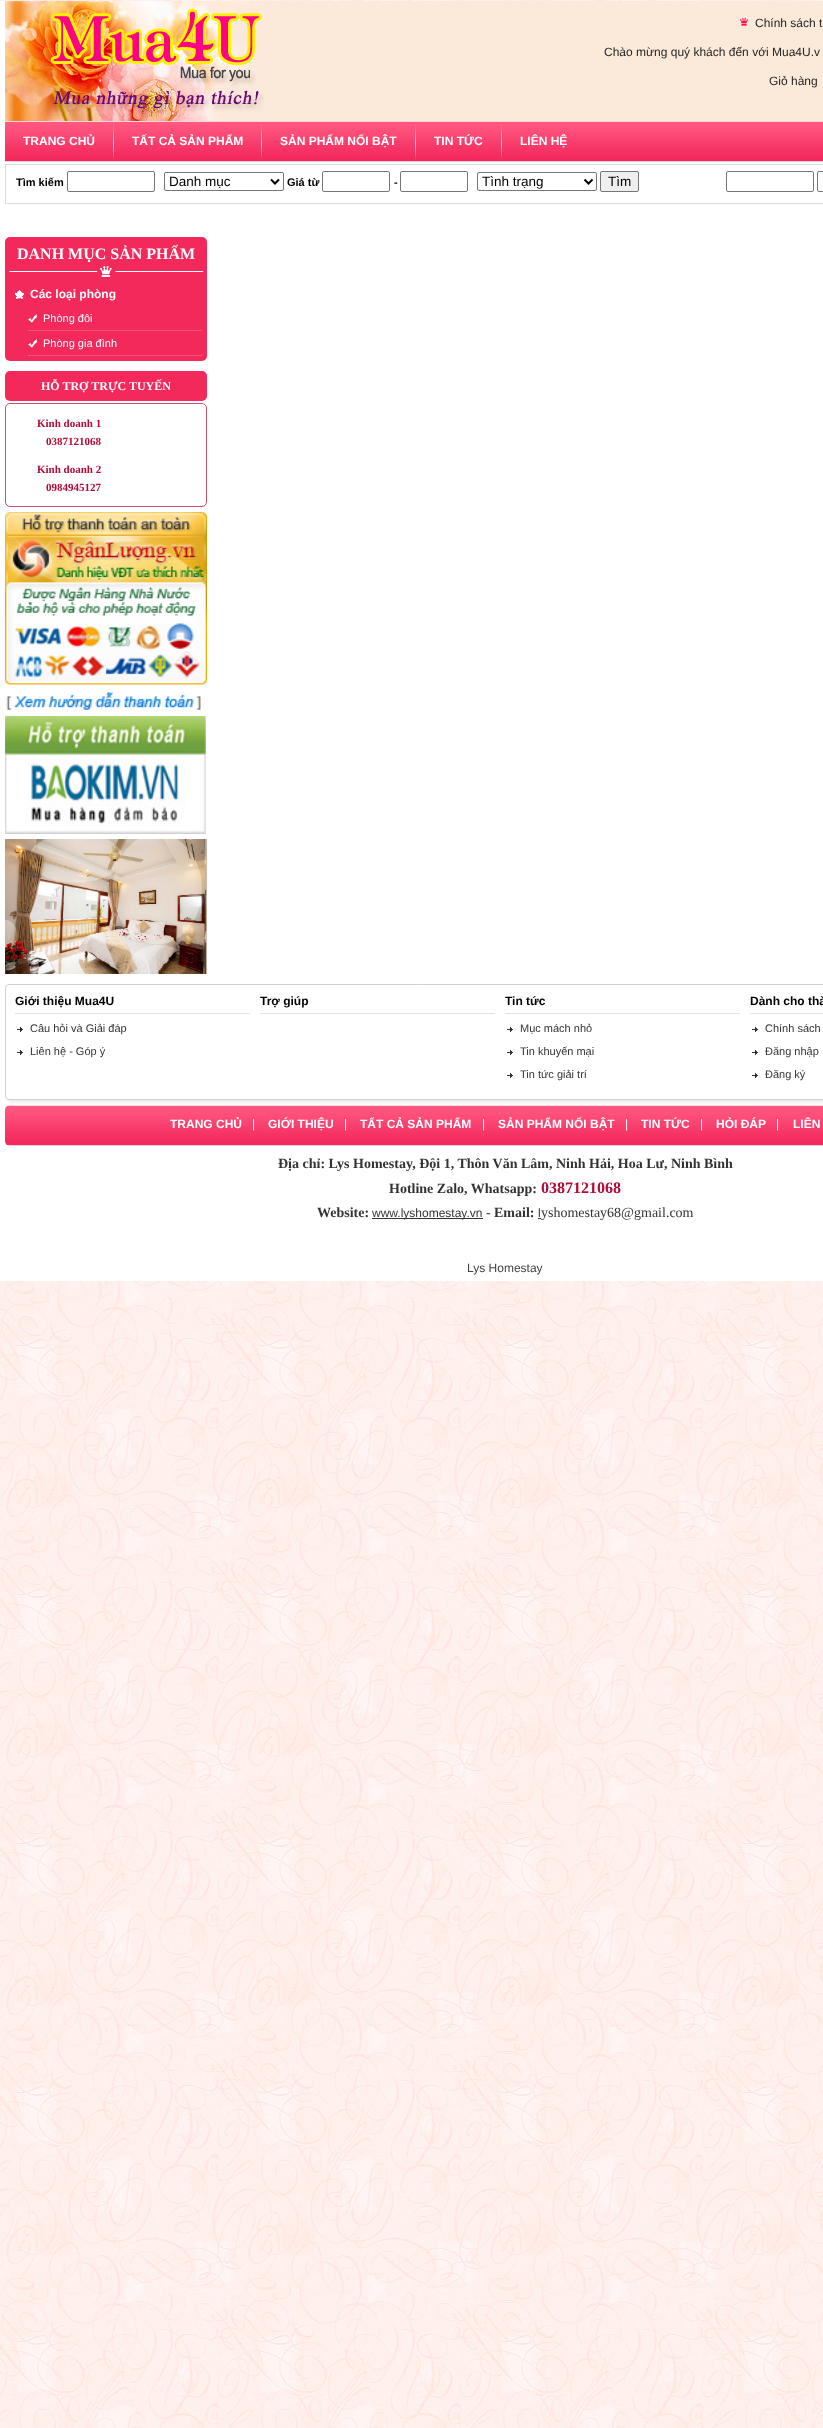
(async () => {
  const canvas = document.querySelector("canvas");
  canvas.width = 823;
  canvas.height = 2428;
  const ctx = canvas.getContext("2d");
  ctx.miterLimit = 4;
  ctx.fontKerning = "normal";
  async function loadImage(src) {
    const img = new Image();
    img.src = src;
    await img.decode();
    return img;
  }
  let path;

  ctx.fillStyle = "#ffffff";
  ctx.fillRect(0, 0, 823, 2428);
  ctx.drawImage(await loadImage("img/1.png"), 0, 0, 823, 2428);
  ctx.fillRect(0, 1, 823, 1280);
  ctx.fillStyle = "#fbe9da";
  ctx.fillRect(269, 1, 554, 120);
  ctx.drawImage(await loadImage("img/2.png"), 5, 1, 264, 120);
  ctx.drawImage(await loadImage("img/3.png"), 740, 18, 8, 8);
  ctx.drawImage(await loadImage("img/4.png"), 5, 121, 818, 41);
  ctx.drawImage(await loadImage("img/5.png"), 113, 124, 1, 37);
  ctx.drawImage(await loadImage("img/5.png"), 261, 124, 1, 37);
  ctx.drawImage(await loadImage("img/5.png"), 415, 124, 1, 37);
  ctx.drawImage(await loadImage("img/5.png"), 501, 124, 1, 37);
  ctx.strokeStyle = "#dcdcdc";
  ctx.strokeRect(5.5, 164.5, 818, 39);
  ctx.beginPath();
  ctx.roundRect(67.5, 171.5, 87, 20, 1.5);
  ctx.strokeStyle = "#767676";
  ctx.stroke();
  ctx.beginPath();
  ctx.roundRect(164.5, 172.5, 119, 18, 1.5);
  ctx.stroke();
  path = new Path2D("M271 179.5L275 183.5L279 179.5");
  ctx.strokeStyle = "#000000";
  ctx.lineWidth = 2;
  ctx.stroke(path);
  ctx.beginPath();
  ctx.roundRect(322.5, 171.5, 67, 20, 1.5);
  ctx.strokeStyle = "#767676";
  ctx.lineWidth = 1;
  ctx.stroke();
  ctx.beginPath();
  ctx.roundRect(400.5, 171.5, 67, 20, 1.5);
  ctx.stroke();
  ctx.beginPath();
  ctx.roundRect(477.5, 172.5, 119, 18, 1.5);
  ctx.stroke();
  path = new Path2D("M584.5 179.5L588.5 183.5L592.5 179.5");
  ctx.strokeStyle = "#000000";
  ctx.lineWidth = 2;
  ctx.stroke(path);
  ctx.fillStyle = "#efefef";
  ctx.beginPath();
  ctx.roundRect(600.5, 171.5, 38, 20, 1.5);
  ctx.fill();
  ctx.strokeStyle = "#767676";
  ctx.lineWidth = 1;
  ctx.stroke();
  ctx.beginPath();
  ctx.roundRect(726.5, 171.5, 87, 20, 1.5);
  ctx.stroke();
  ctx.beginPath();
  ctx.roundRect(817.5, 171.5, 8, 20, 1.5);
  ctx.stroke();
  ctx.fillStyle = "#f3285b";
  ctx.beginPath();
  ctx.roundRect(5, 237, 202, 124, 5);
  ctx.fill();
  ctx.drawImage(await loadImage("img/6.png"), 9, 266, 195, 11);
  ctx.drawImage(await loadImage("img/7.png"), 15, 290, 9, 9);
  ctx.drawImage(await loadImage("img/8.png"), 28, 314, 9, 9);
  ctx.fillStyle = "#fb507b";
  ctx.fillRect(28, 330, 174, 1);
  ctx.drawImage(await loadImage("img/8.png"), 28, 339, 9, 9);
  ctx.fillRect(28, 355, 174, 1);
  ctx.fillStyle = "#f3285b";
  ctx.beginPath();
  ctx.roundRect(5, 371, 202, 30, 5);
  ctx.fill();
  ctx.beginPath();
  ctx.roundRect(5.5, 403.5, 201, 103, 4.5);
  ctx.strokeStyle = "#c8516d";
  ctx.stroke();
  ctx.drawImage(await loadImage("img/9.png"), 5, 512, 202, 198);
  ctx.drawImage(await loadImage("img/10.png"), 5, 716, 201, 118);
  ctx.drawImage(await loadImage("img/11.png"), 5, 839, 202, 135);
  ctx.drawImage(await loadImage("img/13.png"), 5, 1105, 818, 41);
  ctx.save();
  path = new Path2D("M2 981H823V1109H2ZM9 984H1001C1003 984 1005 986 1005 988V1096C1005 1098 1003 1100 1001 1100H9C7 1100 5 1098 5 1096V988C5 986 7 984 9 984Z");
  ctx.clip(path, "evenodd");
  ctx.fillStyle = "#eeeeee";
  ctx.filter = "blur(1.5px)";
  ctx.beginPath();
  ctx.roundRect(8, 987, 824, 116, 4);
  ctx.fill();
  ctx.filter = "none";
  ctx.restore();
  ctx.beginPath();
  ctx.roundRect(5.5, 984.5, 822, 115, 3.5);
  ctx.strokeStyle = "#d1d1d1";
  ctx.stroke();
  for (const [x, y, w, h, color] of [
    [15, 1013, 235, 1, "#e3e3e3"],
    [260, 1013, 235, 1, "#e3e3e3"],
    [505, 1013, 235, 1, "#e3e3e3"],
    [750, 1013, 73, 1, "#e3e3e3"],
  ]) {
    ctx.fillStyle = color;
    ctx.fillRect(x, y, w, h);
  }
  ctx.drawImage(await loadImage("img/12.png"), 17, 1027, 6, 5);
  ctx.drawImage(await loadImage("img/12.png"), 17, 1050, 6, 5);
  ctx.drawImage(await loadImage("img/12.png"), 507, 1027, 6, 5);
  ctx.drawImage(await loadImage("img/12.png"), 507, 1050, 6, 5);
  ctx.drawImage(await loadImage("img/12.png"), 507, 1073, 6, 5);
  ctx.drawImage(await loadImage("img/12.png"), 752, 1027, 6, 5);
  ctx.drawImage(await loadImage("img/12.png"), 752, 1050, 6, 5);
  ctx.drawImage(await loadImage("img/12.png"), 752, 1073, 6, 5);
  ctx.fillStyle = "#333333";
  ctx.fillRect(372, 1218, 111, 1);
  ctx.fillRect(538, 1218, 3, 1);
  ctx.font = "12px Liberation Sans";
  ctx.fillStyle = "#262626";
  for (const [text, x, y] of [
    ["Chính sách t", 755, 27],
    ["Chào mừng quý khách đến với Mua4U.v", 604, 56],
    ["Giỏ hàng", 769, 85],
  ]) {
    ctx.fillText(text, x, y);
  }
  ctx.font = "bold 12px Liberation Sans";
  ctx.fillStyle = "#ffffff";
  for (const [text, x, y] of [
    ["TRANG CHỦ", 23, 145],
    ["TẤT CẢ SẢN PHẨM", 132, 145],
    ["SẢN PHẨM NỔI BẬT", 280, 145],
    ["TIN TỨC", 434, 145],
    ["LIÊN HỆ", 520, 145],
  ]) {
    ctx.fillText(text, x, y);
  }
  ctx.font = "bold 11px Liberation Sans";
  ctx.fillStyle = "#000000";
  ctx.fillText("Tìm kiếm", 16, 186);
  ctx.font = "13.5px Liberation Sans";
  ctx.fillText("Danh mục", 169, 186);
  ctx.font = "bold 11px Liberation Sans";
  ctx.fillText("Giá từ", 287, 186);
  ctx.fillText("-", 394, 186);
  ctx.font = "13.5px Liberation Sans";
  ctx.fillText("Tình trạng", 482, 186);
  ctx.fillText("Tìm", 608, 186);
  ctx.font = "bold 16px Liberation Serif";
  ctx.fillStyle = "#ffffff";
  ctx.fillText("DANH MỤC SẢN PHẨM", 17, 259);
  ctx.font = "bold 12px Liberation Sans";
  ctx.fillText("Các loại phòng", 30, 298);
  ctx.font = "11px Liberation Sans";
  ctx.fillText("Phòng đôi", 43, 322);
  ctx.fillText("Phòng gia đình", 43, 347);
  ctx.font = "bold 12px Liberation Serif";
  ctx.fillText("HỖ TRỢ TRỰC TUYẾN", 41, 390);
  ctx.font = "bold 11px Liberation Serif";
  ctx.fillStyle = "#b50936";
  for (const [text, x, y] of [
    ["Kinh doanh 1", 37, 427],
    ["0387121068", 46, 445],
    ["Kinh doanh 2", 37, 473],
    ["0984945127", 46, 491],
  ]) {
    ctx.fillText(text, x, y);
  }
  ctx.font = "bold 12px Liberation Sans";
  ctx.fillStyle = "#000000";
  for (const [text, x, y] of [
    ["Giới thiệu Mua4U", 15, 1005],
    ["Trợ giúp", 260, 1005],
    ["Tin tức", 505, 1005],
    ["Dành cho thà", 750, 1005],
  ]) {
    ctx.fillText(text, x, y);
  }
  ctx.font = "11px Liberation Sans";
  ctx.fillStyle = "#333333";
  for (const [text, x, y] of [
    ["Câu hỏi và Giải đáp", 30, 1032],
    ["Liên hệ - Góp ý", 30, 1055],
    ["Mục mách nhỏ", 520, 1032],
    ["Tin khuyến mại", 520, 1055],
    ["Tin tức giải trí", 520, 1078],
    ["Chính sách", 765, 1032],
    ["Đăng nhập", 765, 1055],
    ["Đăng ký", 765, 1078],
  ]) {
    ctx.fillText(text, x, y);
  }
  ctx.font = "bold 12px Liberation Sans";
  ctx.fillStyle = "#ffffff";
  ctx.fillText("TRANG CHỦ", 170, 1128);
  ctx.font = "12px Liberation Sans";
  ctx.fillText("|", 252, 1128);
  ctx.font = "bold 12px Liberation Sans";
  ctx.fillText("GIỚI THIỆU", 268, 1128);
  ctx.font = "12px Liberation Sans";
  ctx.fillText("|", 344, 1128);
  ctx.font = "bold 12px Liberation Sans";
  ctx.fillText("TẤT CẢ SẢN PHẨM", 360, 1128);
  ctx.font = "12px Liberation Sans";
  ctx.fillText("|", 482, 1128);
  ctx.font = "bold 12px Liberation Sans";
  ctx.fillText("SẢN PHẨM NỔI BẬT", 498, 1128);
  ctx.font = "12px Liberation Sans";
  ctx.fillText("|", 625, 1128);
  ctx.font = "bold 12px Liberation Sans";
  ctx.fillText("TIN TỨC", 641, 1128);
  ctx.font = "12px Liberation Sans";
  ctx.fillText("|", 700, 1128);
  ctx.font = "bold 12px Liberation Sans";
  ctx.fillText("HỎI ĐÁP", 716, 1128);
  ctx.font = "12px Liberation Sans";
  ctx.fillText("|", 776, 1128);
  ctx.font = "bold 12px Liberation Sans";
  ctx.fillText("LIÊN", 793, 1128);
  ctx.font = "bold 14px Liberation Serif";
  ctx.fillStyle = "#333333";
  ctx.fillText("Địa chỉ: Lys Homestay, Đội 1, Thôn Văn Lâm, Ninh Hải, Hoa Lư, Ninh Bình", 278, 1168);
  ctx.fillText("Hotline Zalo, Whatsapp:", 389, 1193);
  ctx.font = "bold 16px Liberation Serif";
  ctx.fillStyle = "#b50936";
  ctx.fillText("0387121068", 541, 1193);
  ctx.font = "bold 14px Liberation Serif";
  ctx.fillStyle = "#333333";
  ctx.fillText("Website:", 317, 1217);
  ctx.font = "12px Liberation Sans";
  ctx.fillText("www.lyshomestay.vn", 372, 1217);
  ctx.font = "14px Liberation Serif";
  ctx.fillText("-", 486, 1217);
  ctx.font = "bold 14px Liberation Serif";
  ctx.fillText("Email:", 494, 1217);
  ctx.font = "12px Liberation Sans";
  ctx.fillText("l", 538, 1217);
  ctx.font = "14px Liberation Serif";
  ctx.fillText("yshomestay68@gmail.com", 541, 1217);
  ctx.font = "12px Liberation Sans";
  ctx.fillStyle = "#444444";
  ctx.fillText("Lys Homestay", 467, 1272);
})();
